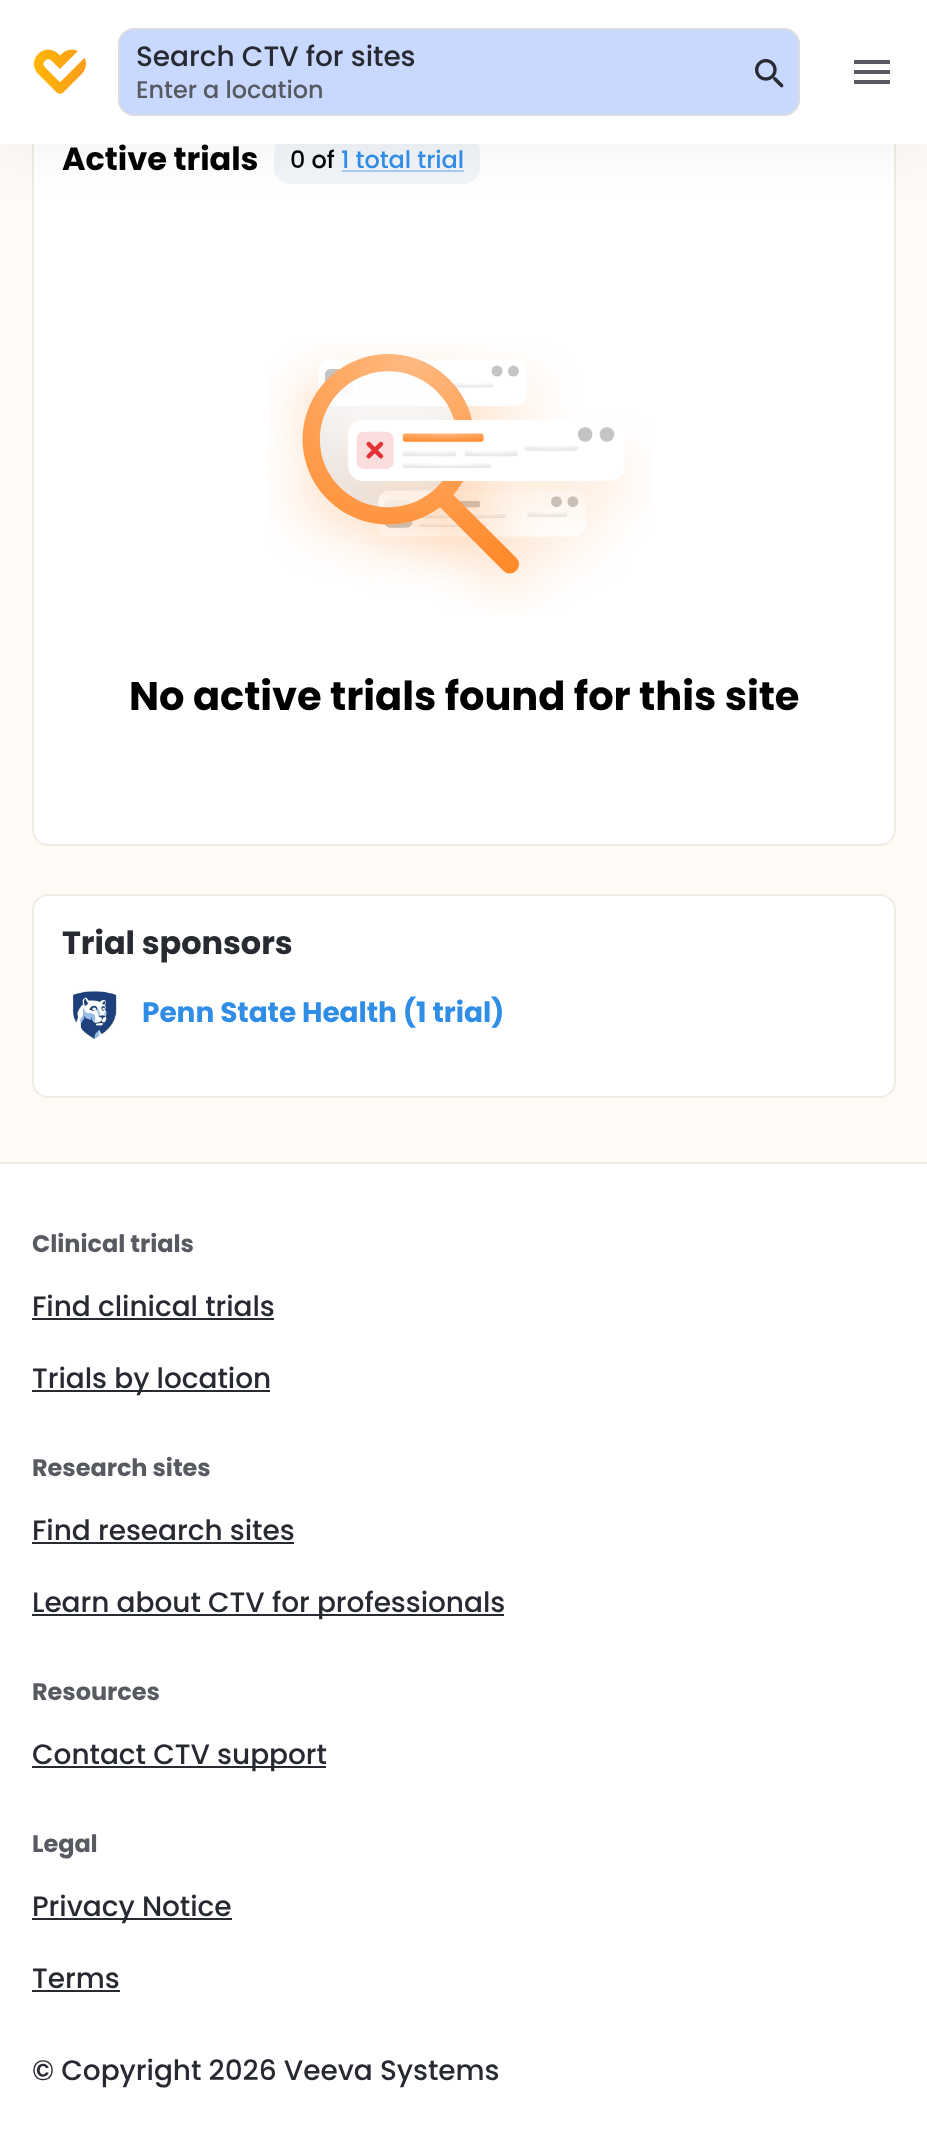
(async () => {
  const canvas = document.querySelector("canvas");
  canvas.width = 927;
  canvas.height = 2152;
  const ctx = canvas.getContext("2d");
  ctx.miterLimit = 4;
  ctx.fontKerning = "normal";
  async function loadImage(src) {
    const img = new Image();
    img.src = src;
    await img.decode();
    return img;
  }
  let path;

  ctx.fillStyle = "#fefaf5";
  ctx.fillRect(0, 0, 927, 2152);
  ctx.fillStyle = "#ffffff";
  ctx.beginPath();
  ctx.roundRect(33, 107, 862, 738, 15);
  ctx.fill();
  ctx.strokeStyle = "#f1ece3";
  ctx.lineWidth = 2;
  ctx.stroke();
  ctx.fillStyle = "#f1f4f9";
  ctx.beginPath();
  ctx.roundRect(274, 136, 206, 48, 16);
  ctx.fill();
  ctx.fillStyle = "#a3cbf1";
  ctx.fillRect(342, 170, 122, 2);
  ctx.fillStyle = "rgba(0, 0, 0, 0.06)";
  ctx.filter = "blur(32px)";
  ctx.beginPath();
  ctx.rect(0, 0, 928, 144);
  ctx.fill();
  ctx.filter = "none";
  ctx.fillStyle = "#ffffff";
  ctx.fillRect(0, 0, 927, 144);
  ctx.drawImage(await loadImage("img/1.png"), 33, 49, 53, 45);
  ctx.fillStyle = "#c9d8ff";
  ctx.beginPath();
  ctx.roundRect(119, 29, 680, 86, 15);
  ctx.fill();
  ctx.strokeStyle = "#d9dce1";
  ctx.stroke();
  ctx.drawImage(await loadImage("img/2.png"), 755, 59, 29, 29);
  ctx.fillStyle = "#575a60";
  path = new Path2D("M854 84H890V80H854ZM854 74H890V70H854ZM854 60V64H890V60Z");
  ctx.fill(path);
  ctx.drawImage(await loadImage("img/3.png"), 267, 343, 384, 271);
  ctx.fillStyle = "#ffffff";
  ctx.beginPath();
  ctx.roundRect(33, 895, 862, 202, 15);
  ctx.fill();
  ctx.strokeStyle = "#f1ece3";
  ctx.stroke();
  ctx.drawImage(await loadImage("img/4.png"), 72, 990, 45, 50);
  for (const [x, y, w, h, color] of [
    [0, 1164, 927, 988, "#ffffff"],
    [0, 1162, 927, 2, "#f1ece3"],
    [32, 1318, 242, 2, "#272a30"],
    [32, 1390, 238, 2, "#272a30"],
    [32, 1542, 262, 2, "#272a30"],
    [32, 1614, 472, 2, "#272a30"],
    [32, 1766, 294, 2, "#272a30"],
    [32, 1918, 200, 2, "#272a30"],
    [32, 1990, 88, 2, "#272a30"],
  ]) {
    ctx.fillStyle = color;
    ctx.fillRect(x, y, w, h);
  }
  ctx.letterSpacing = "-0.05px";
  ctx.font = "500 28px Poppins";
  ctx.fillText("Search CTV for sites", 136, 66);
  ctx.font = "500 24px Poppins";
  ctx.fillStyle = "#575a60";
  ctx.fillText("Enter a location", 136, 98);
  ctx.font = "bold 32px Poppins";
  ctx.fillStyle = "#000000";
  ctx.fillText("Active trials", 62, 170);
  ctx.font = "500 24px Poppins";
  ctx.fillText("0 of", 290, 168);
  ctx.fillStyle = "#2f8de5";
  ctx.fillText("1 total trial", 341, 168);
  ctx.font = "bold 40px Poppins";
  ctx.fillStyle = "#000000";
  ctx.fillText("No active trials found for this site", 129, 710);
  ctx.font = "bold 32px Poppins";
  ctx.fillStyle = "#272a30";
  ctx.fillText("Trial sponsors", 62, 954);
  ctx.font = "bold 28px Poppins";
  ctx.fillStyle = "#2f8de5";
  ctx.fillText("Penn State Health (1 trial)", 142, 1022);
  ctx.font = "bold 24px Poppins";
  ctx.fillStyle = "#575a60";
  ctx.fillText("Clinical trials", 32, 1252);
  ctx.font = "500 28px Poppins";
  ctx.fillStyle = "#272a30";
  ctx.fillText("Find clinical trials", 32, 1316);
  ctx.fillText("Trials by location", 32, 1388);
  ctx.font = "bold 24px Poppins";
  ctx.fillStyle = "#575a60";
  ctx.fillText("Research sites", 32, 1476);
  ctx.font = "500 28px Poppins";
  ctx.fillStyle = "#272a30";
  ctx.fillText("Find research sites", 32, 1540);
  ctx.fillText("Learn about CTV for professionals", 32, 1612);
  ctx.font = "bold 24px Poppins";
  ctx.fillStyle = "#575a60";
  ctx.fillText("Resources", 32, 1700);
  ctx.font = "500 28px Poppins";
  ctx.fillStyle = "#272a30";
  ctx.fillText("Contact CTV support", 32, 1764);
  ctx.font = "bold 24px Poppins";
  ctx.fillStyle = "#575a60";
  ctx.fillText("Legal", 32, 1852);
  ctx.font = "500 28px Poppins";
  ctx.fillStyle = "#272a30";
  for (const [text, x, y] of [
    ["Privacy Notice", 32, 1916],
    ["Terms", 32, 1988],
    ["© Copyright 2026 Veeva Systems", 32, 2080],
  ]) {
    ctx.fillText(text, x, y);
  }
})();
